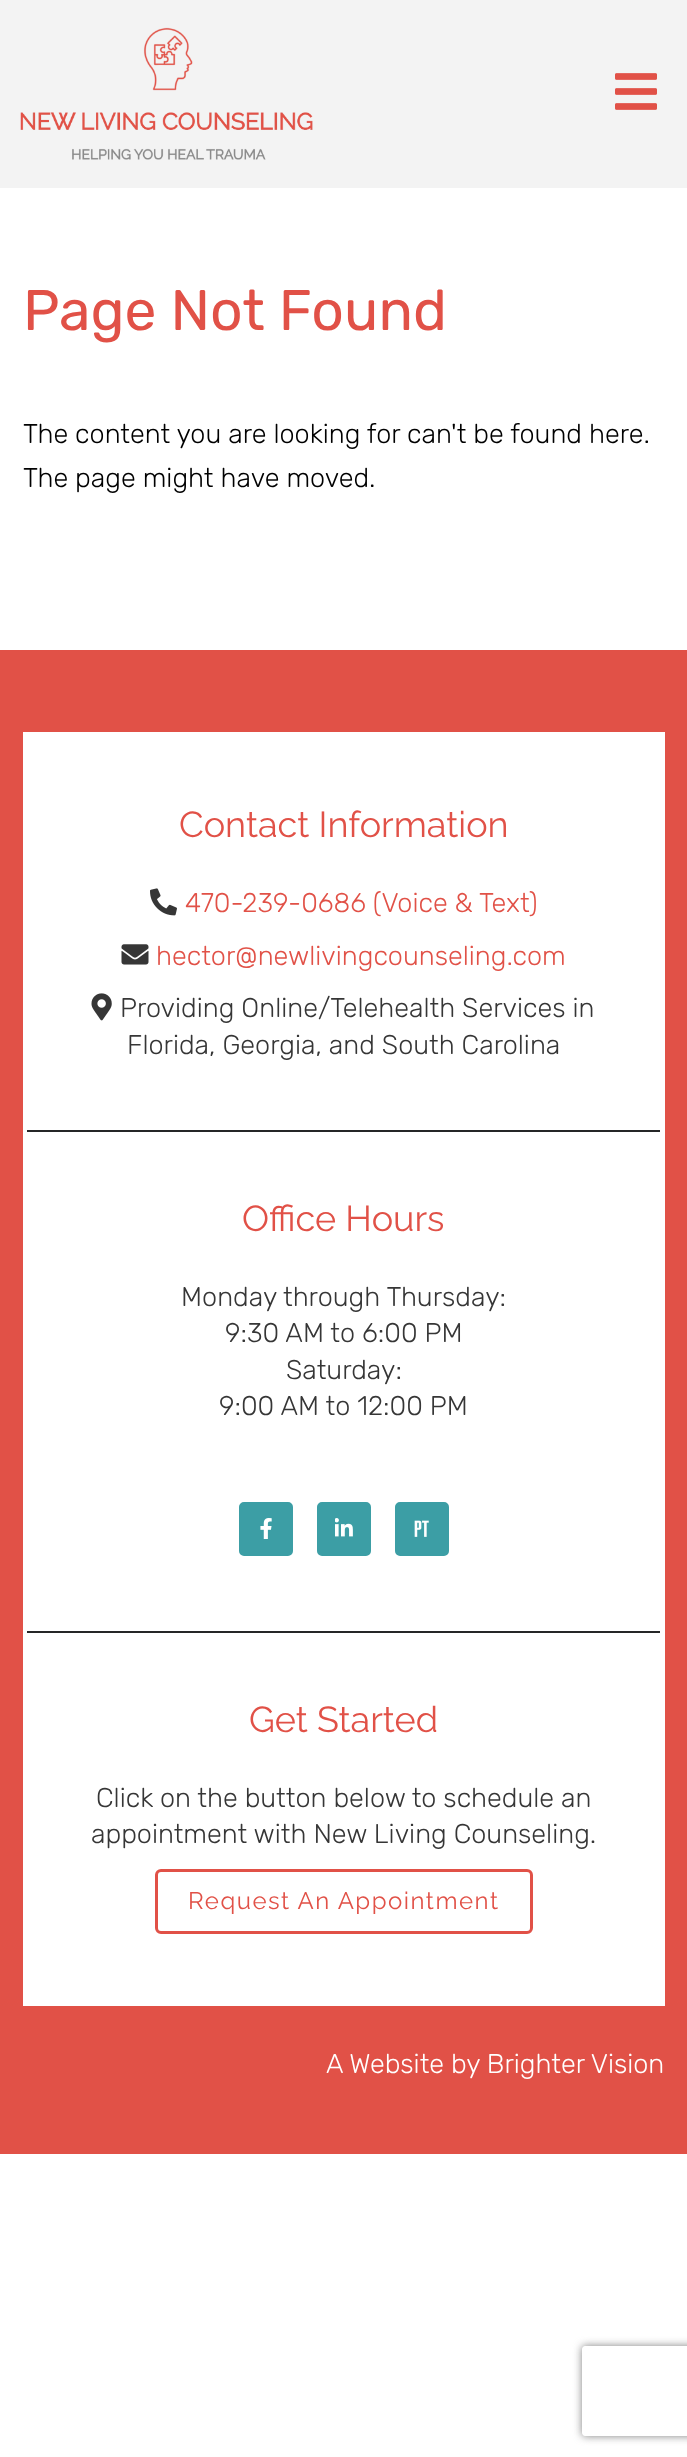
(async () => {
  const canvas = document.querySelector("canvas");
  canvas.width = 687;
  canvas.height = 2457;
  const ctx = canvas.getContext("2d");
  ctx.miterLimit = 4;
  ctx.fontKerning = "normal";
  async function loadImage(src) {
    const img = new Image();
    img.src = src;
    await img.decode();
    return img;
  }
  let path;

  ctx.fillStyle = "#ffffff";
  ctx.fillRect(0, 0, 687, 2457);
  ctx.fillStyle = "#f3f3f3";
  ctx.fillRect(0, 0, 687, 188);
  ctx.drawImage(await loadImage("img/1.png"), 20, 27, 293, 133);
  ctx.drawImage(await loadImage("img/2.png"), 615, 73, 42, 37);
  ctx.fillStyle = "#e15147";
  ctx.fillRect(0, 650, 687, 1504);
  ctx.fillStyle = "#ffffff";
  ctx.fillRect(23, 732, 642, 1274);
  ctx.drawImage(await loadImage("img/3.png"), 150, 888, 27, 28);
  ctx.drawImage(await loadImage("img/4.png"), 121, 944, 28, 21);
  ctx.drawImage(await loadImage("img/5.png"), 91, 993, 21, 28);
  ctx.fillStyle = "#252627";
  ctx.fillRect(27, 1130, 633, 2);
  ctx.fillStyle = "#3c9ea5";
  ctx.beginPath();
  ctx.roundRect(241.5, 1504.5, 49, 49, 2.5);
  ctx.fill();
  ctx.strokeStyle = "#3c9ea5";
  ctx.lineWidth = 5;
  ctx.stroke();
  ctx.drawImage(await loadImage("img/6.png"), 260, 1518, 12, 21);
  ctx.beginPath();
  ctx.roundRect(319.5, 1504.5, 49, 49, 2.5);
  ctx.fill();
  ctx.stroke();
  ctx.drawImage(await loadImage("img/7.png"), 335, 1518, 18, 19);
  ctx.beginPath();
  ctx.roundRect(397.5, 1504.5, 49, 49, 2.5);
  ctx.fill();
  ctx.stroke();
  ctx.drawImage(await loadImage("img/8.png"), 414, 1520, 15, 17);
  ctx.fillStyle = "#252627";
  ctx.fillRect(27, 1631, 633, 2);
  ctx.beginPath();
  ctx.roundRect(156.5, 1870.5, 375, 62, 4.5);
  ctx.strokeStyle = "#e15147";
  ctx.lineWidth = 3;
  ctx.stroke();
  ctx.save();
  path = new Path2D("M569 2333H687V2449H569ZM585 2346H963C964.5 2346 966 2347.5 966 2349V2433C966 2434.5 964.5 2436 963 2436H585C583.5 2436 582 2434.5 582 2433V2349C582 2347.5 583.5 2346 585 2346Z");
  ctx.clip(path, "evenodd");
  ctx.fillStyle = "#808080";
  ctx.filter = "blur(4px)";
  ctx.beginPath();
  ctx.roundRect(582, 2346, 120, 90, 3);
  ctx.fill();
  ctx.filter = "none";
  ctx.restore();
  ctx.font = "57px Rubik";
  ctx.fillStyle = "#e15147";
  ctx.fillText("Page Not Found", 23, 330);
  ctx.font = "300 27px Rubik";
  ctx.fillStyle = "#000000";
  ctx.fillText("The content you are looking for can't be found here.", 23, 443);
  ctx.fillText("The page might have moved.", 23, 487);
  ctx.font = "36px Raleway";
  ctx.fillStyle = "#e15147";
  ctx.fillText("Contact Information", 179, 837);
  ctx.font = "300 27px Rubik";
  ctx.fillText("470-239-0686 (Voice & Text)", 185, 912);
  ctx.fillText("hector@newlivingcounseling.com", 156, 965);
  ctx.fillStyle = "#363636";
  ctx.fillText("Providing Online/Telehealth Services in", 120, 1017);
  ctx.fillText("Florida, Georgia, and South Carolina", 127, 1054);
  ctx.font = "36px Raleway";
  ctx.fillStyle = "#e15147";
  ctx.fillText("Office Hours", 242, 1231);
  ctx.font = "300 27px Rubik";
  ctx.fillStyle = "#363636";
  for (const [text, x, y] of [
    ["Monday through Thursday:", 181, 1306],
    ["9:30 AM to 6:00 PM", 225, 1342],
    ["Saturday:", 286, 1379],
    ["9:00 AM to 12:00 PM", 219, 1415],
  ]) {
    ctx.fillText(text, x, y);
  }
  ctx.font = "36px Raleway";
  ctx.fillStyle = "#e15147";
  ctx.fillText("Get Started", 249, 1732);
  ctx.font = "300 27px Rubik";
  ctx.fillStyle = "#363636";
  ctx.fillText("Click on the button below to schedule an", 96, 1807);
  ctx.fillText("appointment with New Living Counseling.", 91, 1843);
  ctx.letterSpacing = "1.5px";
  ctx.font = "24px Raleway";
  ctx.fillStyle = "#e15147";
  ctx.fillText("Request An Appointment", 188, 1909);
  ctx.letterSpacing = "0px";
  ctx.font = "300 27px Rubik";
  ctx.fillStyle = "#ffffff";
  ctx.fillText("A Website by Brighter Vision", 326, 2073);
})();
